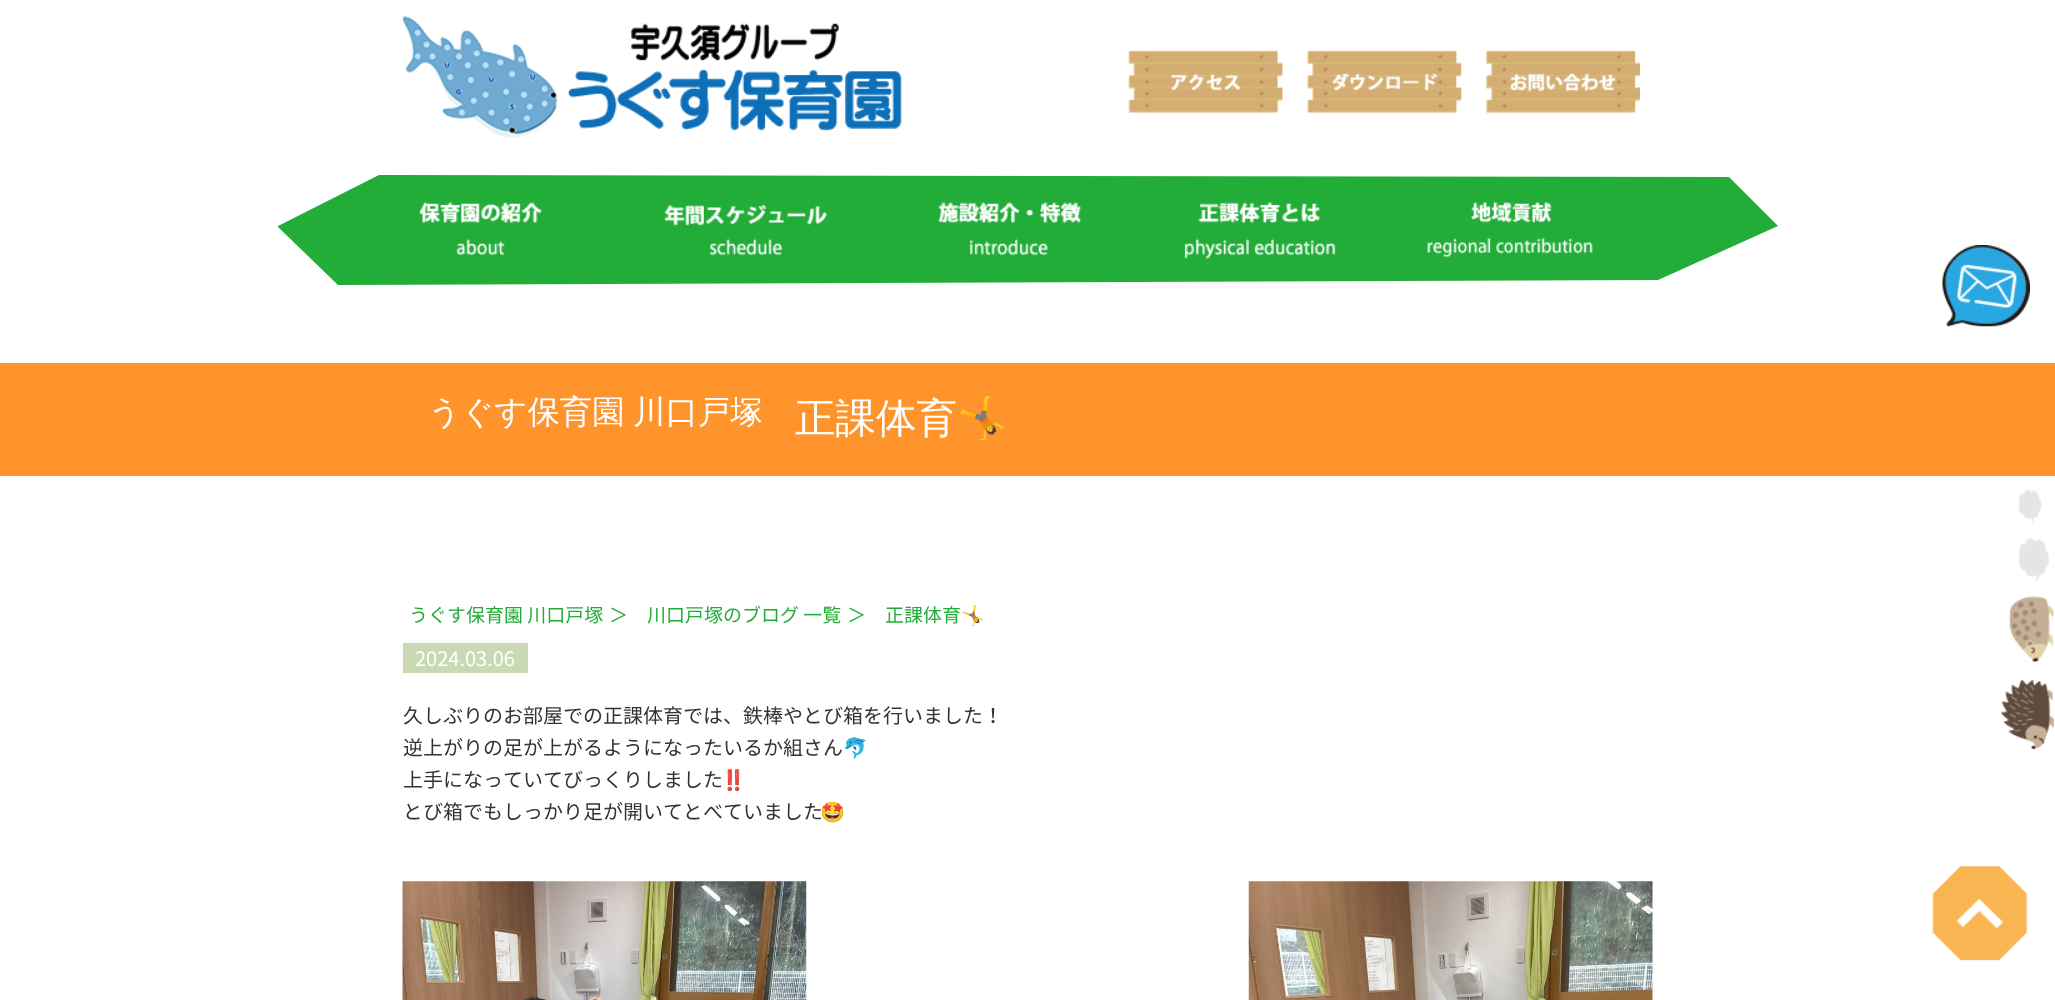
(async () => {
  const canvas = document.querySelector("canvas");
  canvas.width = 2055;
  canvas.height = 1000;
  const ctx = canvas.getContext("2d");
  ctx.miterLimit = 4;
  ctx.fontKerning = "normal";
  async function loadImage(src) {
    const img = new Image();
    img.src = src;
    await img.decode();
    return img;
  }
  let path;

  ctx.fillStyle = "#ffffff";
  ctx.fillRect(0, 0, 2055, 1000);
  ctx.drawImage(await loadImage("img/1.png"), 2001, 489, 54, 260);
  ctx.drawImage(await loadImage("img/2.png"), 402, 16, 500, 122);
  ctx.drawImage(await loadImage("img/3.png"), 1128, 50, 155, 64);
  ctx.drawImage(await loadImage("img/4.png"), 1307, 50, 155, 64);
  ctx.drawImage(await loadImage("img/5.png"), 1486, 50, 154, 64);
  ctx.fillStyle = "#22ac38";
  path = new Path2D("M379 175L278 226V227L338 285L1658 280L1778 226L1729 177Z");
  ctx.fill(path);
  ctx.drawImage(await loadImage("img/6.png"), 418, 202, 125, 54);
  ctx.drawImage(await loadImage("img/7.png"), 664, 204, 164, 52);
  ctx.drawImage(await loadImage("img/8.png"), 938, 202, 144, 54);
  ctx.drawImage(await loadImage("img/9.png"), 1184, 202, 152, 57);
  ctx.drawImage(await loadImage("img/10.png"), 1427, 202, 166, 56);
  ctx.drawImage(await loadImage("img/11.png"), 1942, 245, 88, 82);
  ctx.drawImage(await loadImage("img/12.png"), 1932, 866, 96, 95);
  ctx.fillStyle = "#ff942c";
  ctx.fillRect(0, 363, 2055, 113);
  ctx.fillStyle = "#c8d9b4";
  ctx.fillRect(403, 643, 125, 30);
  ctx.drawImage(await loadImage("img/13.png"), 402, 881, 405, 119);
  ctx.drawImage(await loadImage("img/14.png"), 1248, 881, 405, 119);
  ctx.wordSpacing = "-1px";
  ctx.font = "500 32.4px WenQuanYi Zen Hei";
  ctx.fillStyle = "#ffffff";
  ctx.fillText("うぐす保育園 川口戸塚", 428, 423);
  ctx.wordSpacing = "0px";
  ctx.font = "500 40.5px WenQuanYi Zen Hei";
  ctx.fillText("正課体育", 795, 432);
  ctx.font = "40.5px Noto Color Emoji";
  ctx.fillText("🤸", 957, 432);
  ctx.font = "19px Noto Sans JP";
  ctx.fillStyle = "#22ac38";
  for (const [text, x, y] of [
    ["うぐす保育園 川口戸塚", 409, 622],
    ["＞", 609, 622],
    ["川口戸塚のブログ 一覧", 647, 622],
    ["＞", 847, 622],
    ["正課体育", 885, 622],
  ]) {
    ctx.fillText(text, x, y);
  }
  ctx.font = "19px Noto Color Emoji";
  ctx.fillText("🤸", 961, 622);
  ctx.font = "20px Noto Sans JP";
  ctx.fillStyle = "#ffffff";
  ctx.fillText("2024.03.06", 415, 666);
  ctx.fillStyle = "#333333";
  ctx.fillText("久しぶりのお部屋での正課体育では、鉄棒やとび箱を行いました！", 403, 723);
  ctx.fillText("逆上がりの足が上がるようになったいるか組さん", 403, 755);
  ctx.font = "20px Noto Color Emoji";
  ctx.fillText("🐬", 843, 755);
  ctx.font = "20px Noto Sans JP";
  ctx.fillText("上手になっていてびっくりしました", 403, 787);
  ctx.font = "20px Noto Color Emoji";
  ctx.fillText("‼️", 721, 787);
  ctx.font = "20px Noto Sans JP";
  ctx.fillText("とび箱でもしっかり足が開いてとべていました", 403, 819);
  ctx.font = "20px Noto Color Emoji";
  ctx.fillText("🤩", 820, 819);
})();
